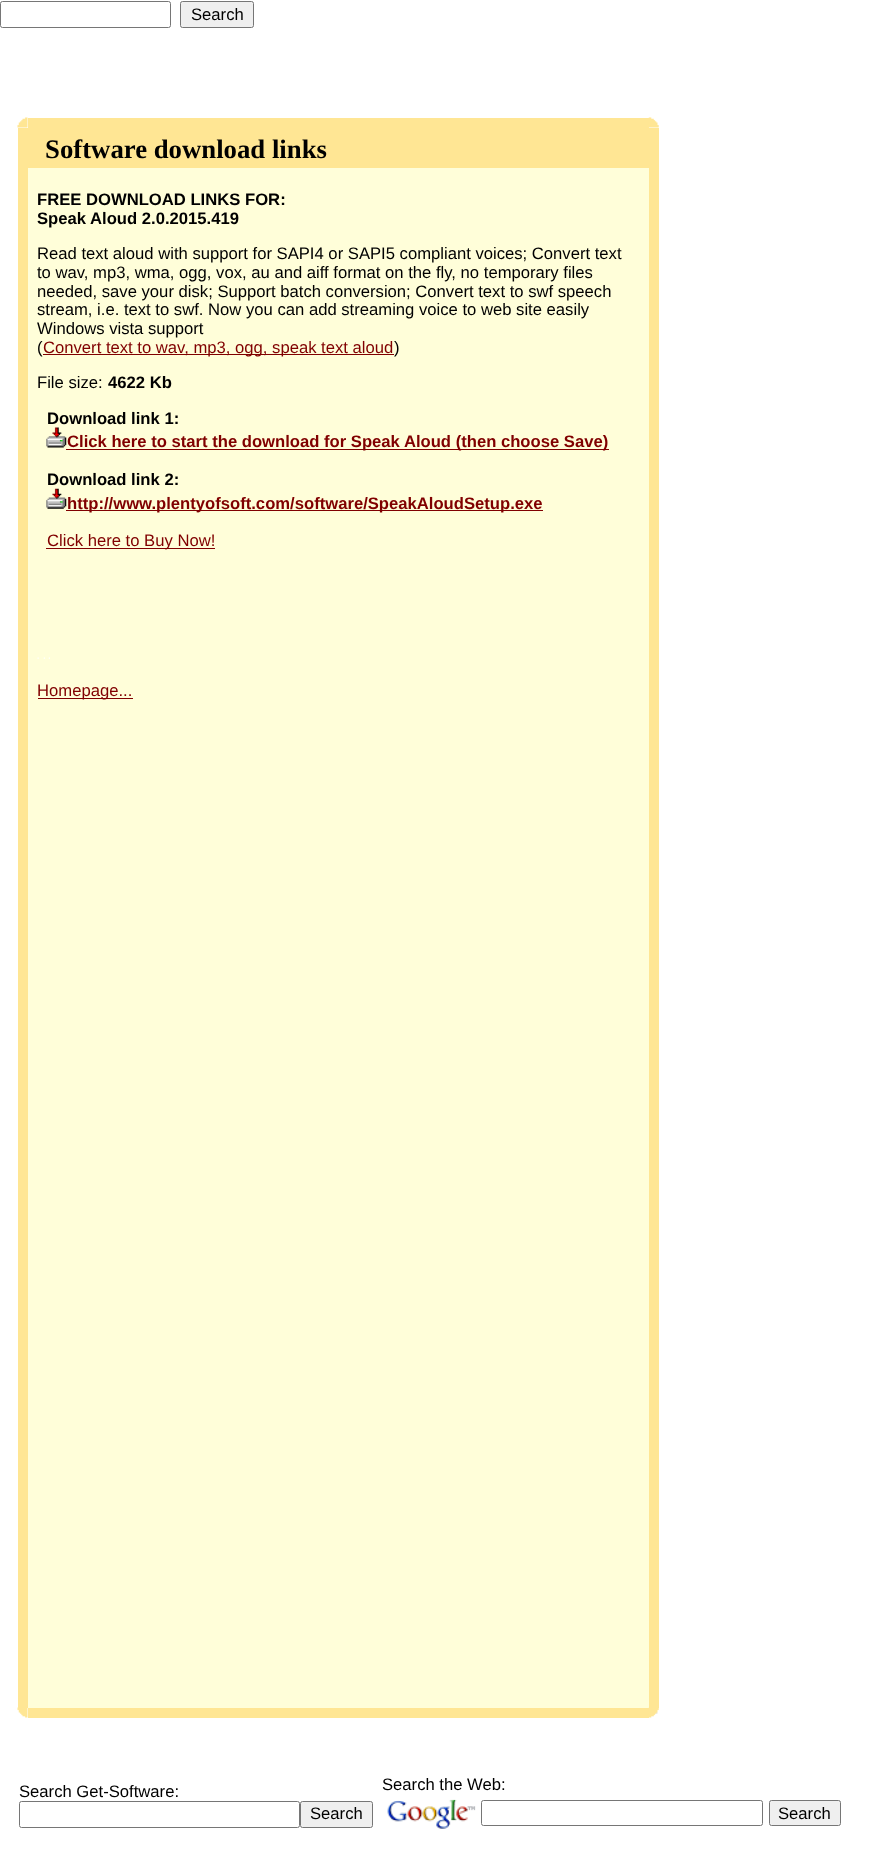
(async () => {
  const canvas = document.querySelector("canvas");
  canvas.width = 895;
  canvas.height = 1851;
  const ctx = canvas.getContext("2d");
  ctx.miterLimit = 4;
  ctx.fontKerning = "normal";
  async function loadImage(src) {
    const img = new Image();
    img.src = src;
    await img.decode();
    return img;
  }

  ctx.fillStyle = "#ffffff";
  ctx.fillRect(0, 0, 895, 1851);
  ctx.beginPath();
  ctx.roundRect(0.5, 1.5, 170, 26, 2);
  ctx.strokeStyle = "#767676";
  ctx.stroke();
  ctx.fillStyle = "#efefef";
  ctx.beginPath();
  ctx.roundRect(180.5, 1.5, 73, 26, 2);
  ctx.fill();
  ctx.stroke();
  ctx.drawImage(await loadImage("img/1.png"), 17, 117, 11, 11);
  ctx.fillStyle = "#ffe694";
  ctx.fillRect(28, 118, 621, 50);
  ctx.drawImage(await loadImage("img/2.png"), 648, 117, 11, 11);
  for (const [x, y, w, h, color] of [
    [18, 128, 10, 1580, "#ffe694"],
    [28, 168, 621, 1540, "#fffed9"],
    [43, 354, 351, 1, "#800000"],
  ]) {
    ctx.fillStyle = color;
    ctx.fillRect(x, y, w, h);
  }
  ctx.drawImage(await loadImage("img/3.png"), 46, 427, 21, 21);
  ctx.fillRect(66, 449, 543, 1);
  ctx.drawImage(await loadImage("img/4.png"), 46, 488, 21, 21);
  ctx.fillRect(66, 510, 477, 1);
  ctx.fillRect(46, 548, 169, 1);
  ctx.drawImage(await loadImage("img/5.png"), 37, 657, 2, 2);
  ctx.drawImage(await loadImage("img/6.png"), 43, 657, 2, 2);
  ctx.drawImage(await loadImage("img/6.png"), 48, 657, 2, 2);
  ctx.fillRect(38, 698, 95, 1);
  ctx.fillStyle = "#ffe694";
  ctx.fillRect(649, 128, 10, 1580);
  ctx.drawImage(await loadImage("img/7.png"), 17, 1707, 11, 11);
  ctx.fillRect(28, 1708, 621, 10);
  ctx.drawImage(await loadImage("img/8.png"), 648, 1707, 11, 11);
  ctx.beginPath();
  ctx.roundRect(19.5, 1801.5, 280, 26, 2);
  ctx.stroke();
  ctx.fillStyle = "#efefef";
  ctx.beginPath();
  ctx.roundRect(300.5, 1801.5, 72, 26, 2);
  ctx.fill();
  ctx.stroke();
  ctx.drawImage(await loadImage("img/9.png"), 387, 1799, 89, 30);
  ctx.beginPath();
  ctx.roundRect(481.5, 1800.5, 281, 25, 2);
  ctx.stroke();
  ctx.beginPath();
  ctx.roundRect(769.5, 1800.5, 71, 25, 2);
  ctx.fill();
  ctx.stroke();
  ctx.font = "16.65px Liberation Sans";
  ctx.fillStyle = "#000000";
  ctx.fillText("Search", 191, 20);
  ctx.font = "bold 26.75px Liberation Serif";
  ctx.fillText("Software download links", 45, 158);
  ctx.font = "bold 16.65px Liberation Sans";
  ctx.fillText("FREE DOWNLOAD LINKS FOR:", 37, 205);
  ctx.fillText("Speak Aloud 2.0.2015.419", 37, 224);
  ctx.font = "16.65px Liberation Sans";
  for (const [text, x, y] of [
    ["Read text aloud with support for SAPI4 or SAPI5 compliant voices; Convert text", 37, 259],
    ["to wav, mp3, wma, ogg, vox, au and aiff format on the fly, no temporary files", 37, 278],
    ["needed, save your disk; Support batch conversion; Convert text to swf speech", 37, 297],
    ["stream, i.e. text to swf. Now you can add streaming voice to web site easily", 37, 315],
    ["Windows vista support", 37, 334],
    ["(", 37, 353],
  ]) {
    ctx.fillText(text, x, y);
  }
  ctx.fillStyle = "#800000";
  ctx.fillText("Convert text to wav, mp3, ogg, speak text aloud", 43, 353);
  ctx.fillStyle = "#000000";
  ctx.fillText(")", 394, 353);
  ctx.fillText("File size:", 37, 388);
  ctx.font = "bold 16.65px Liberation Sans";
  ctx.fillText("4622 Kb", 108, 388);
  ctx.fillText("Download link 1:", 47, 424);
  ctx.fillStyle = "#800000";
  ctx.fillText("Click here to start the download for Speak Aloud (then choose Save)", 67, 447);
  ctx.fillStyle = "#000000";
  ctx.fillText("Download link 2:", 47, 485);
  ctx.fillStyle = "#800000";
  ctx.fillText("http://www.plentyofsoft.com/software/SpeakAloudSetup.exe", 67, 509);
  ctx.font = "16.65px Liberation Sans";
  ctx.fillText("Click here to Buy Now!", 47, 546);
  ctx.fillText("Homepage...", 37, 696);
  ctx.fillStyle = "#000000";
  for (const [text, x, y] of [
    ["Search Get-Software:", 19, 1797],
    ["Search", 310, 1819],
    ["Search the Web:", 382, 1790],
    ["Search", 778, 1819],
  ]) {
    ctx.fillText(text, x, y);
  }
})();
